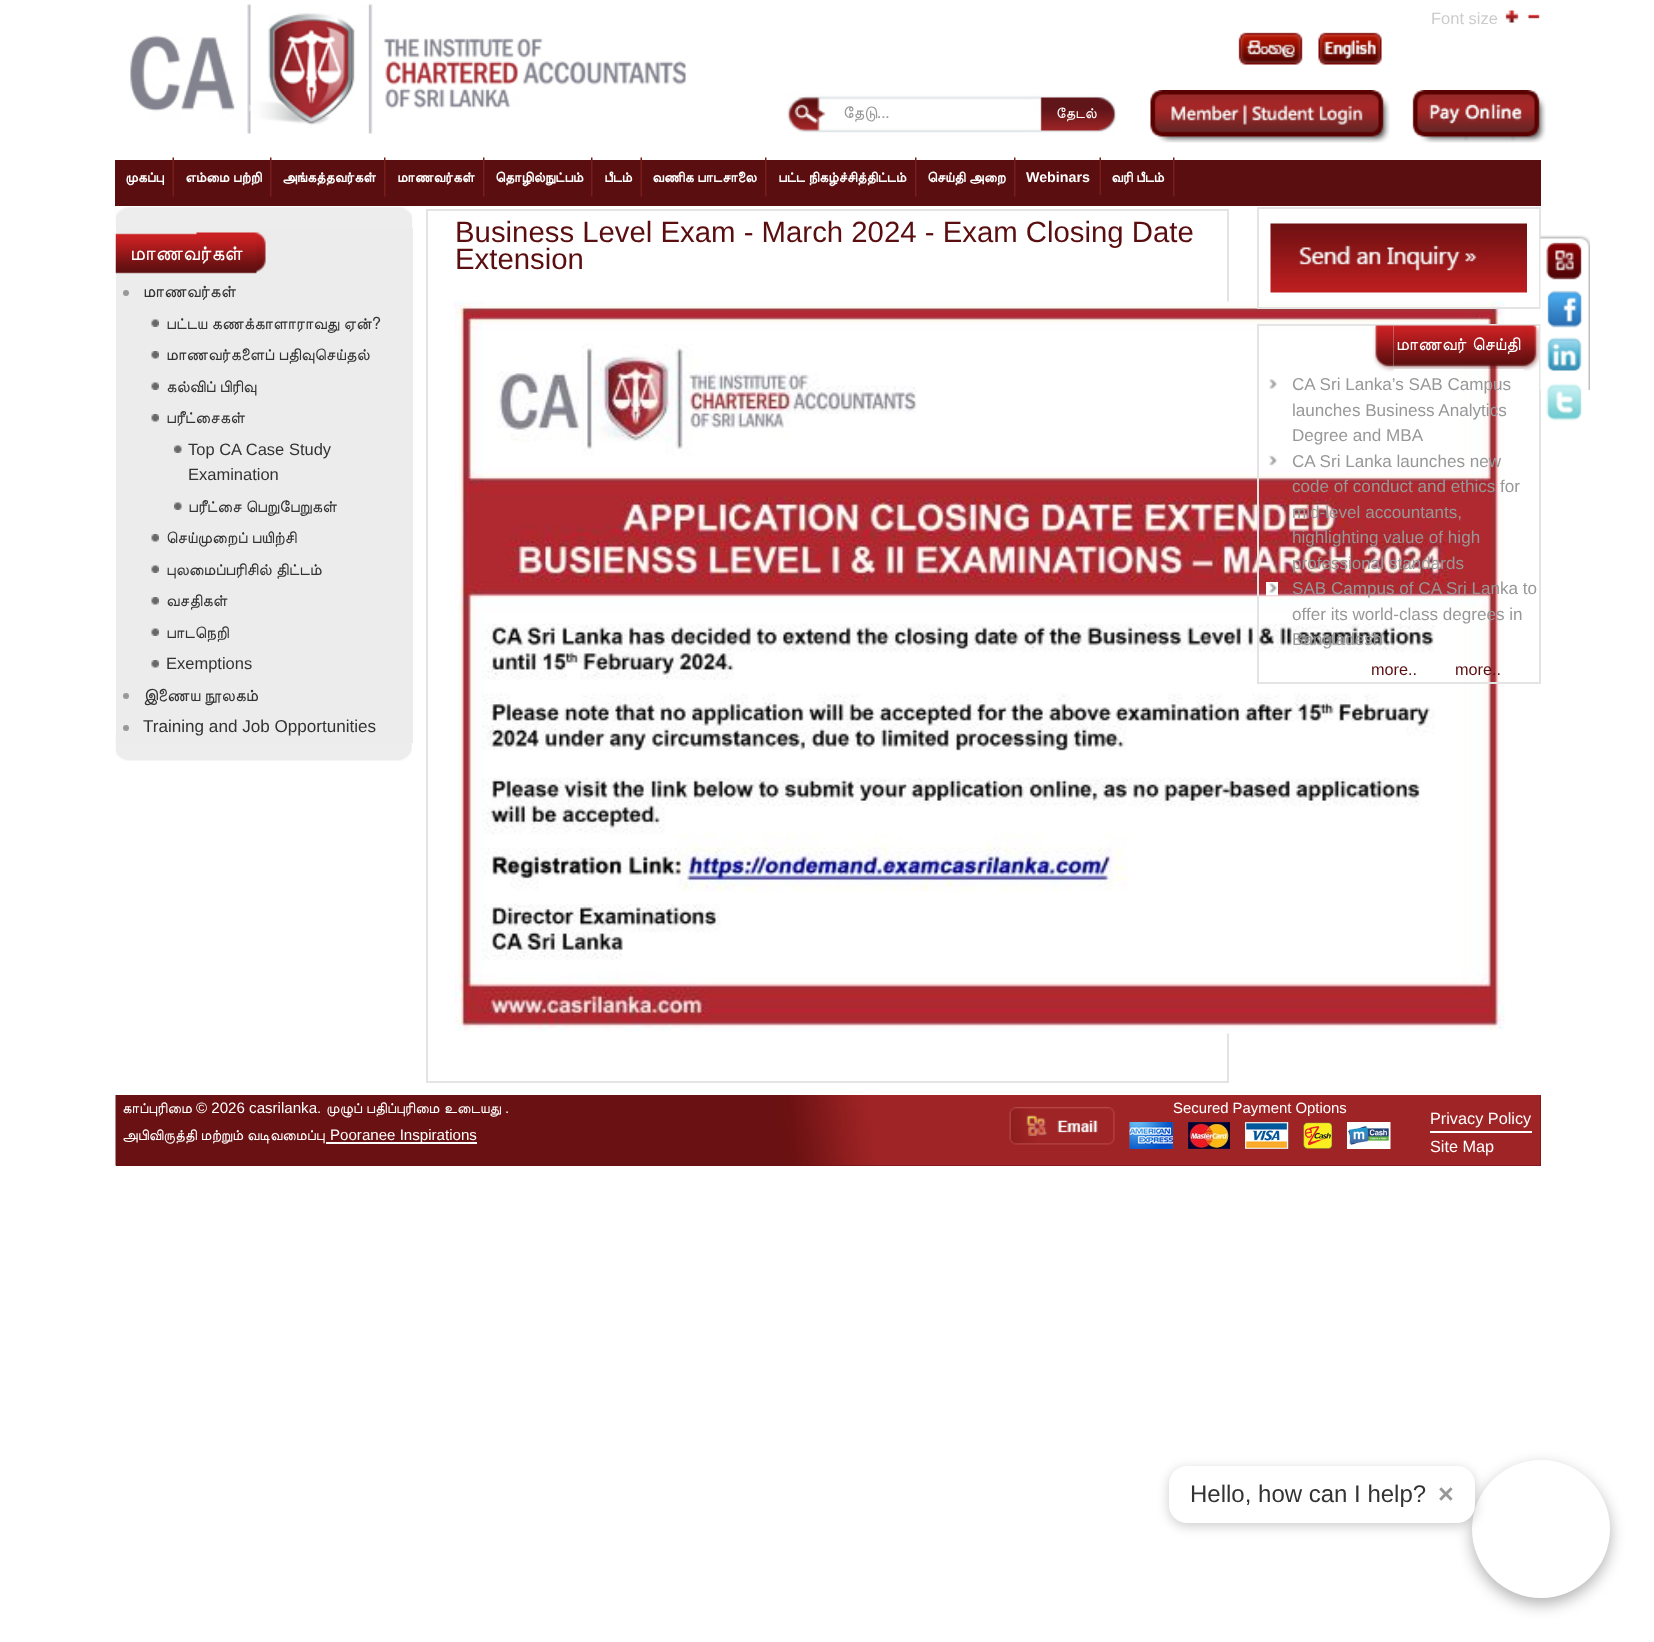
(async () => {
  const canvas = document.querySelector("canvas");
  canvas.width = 1654;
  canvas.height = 1642;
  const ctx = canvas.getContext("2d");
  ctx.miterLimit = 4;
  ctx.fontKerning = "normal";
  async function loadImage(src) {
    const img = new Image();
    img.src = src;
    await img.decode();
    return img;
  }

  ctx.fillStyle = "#ffffff";
  ctx.fillRect(0, 0, 1654, 1642);
  ctx.fillStyle = "#5a0e10";
  ctx.fillRect(115, 160, 1426, 46);
  ctx.drawImage(await loadImage("img/1.png"), 130, 4, 556, 130);
  ctx.drawImage(await loadImage("img/2.png"), 1505, 10, 14, 13);
  ctx.drawImage(await loadImage("img/3.png"), 1528, 14, 12, 5);
  ctx.drawImage(await loadImage("img/4.png"), 1238, 32, 65, 33);
  ctx.drawImage(await loadImage("img/5.png"), 1318, 32, 64, 33);
  ctx.drawImage(await loadImage("img/6.png"), 787, 93, 330, 42);
  ctx.drawImage(await loadImage("img/7.png"), 1150, 90, 240, 53);
  ctx.drawImage(await loadImage("img/8.png"), 1412, 90, 134, 53);
  ctx.drawImage(await loadImage("img/9.png"), 172, 157, 2, 40);
  ctx.drawImage(await loadImage("img/10.png"), 270, 157, 2, 40);
  ctx.drawImage(await loadImage("img/10.png"), 384, 157, 2, 40);
  ctx.drawImage(await loadImage("img/10.png"), 483, 157, 2, 40);
  ctx.drawImage(await loadImage("img/10.png"), 591, 157, 2, 40);
  ctx.drawImage(await loadImage("img/9.png"), 640, 157, 2, 40);
  ctx.drawImage(await loadImage("img/10.png"), 765, 157, 2, 40);
  ctx.drawImage(await loadImage("img/10.png"), 915, 157, 2, 40);
  ctx.drawImage(await loadImage("img/10.png"), 1014, 157, 2, 40);
  ctx.drawImage(await loadImage("img/11.png"), 1099, 157, 2, 38);
  ctx.drawImage(await loadImage("img/10.png"), 1173, 157, 2, 40);
  ctx.drawImage(await loadImage("img/12.png"), 115, 206, 1, 14);
  ctx.drawImage(await loadImage("img/13.png"), 115, 206, 1, 1);
  ctx.drawImage(await loadImage("img/14.png"), 115, 206, 298, 22);
  ctx.drawImage(await loadImage("img/15.png"), 115, 732, 297, 29);
  ctx.fillStyle = "#ececec";
  ctx.fillRect(116, 228, 297, 515);
  ctx.drawImage(await loadImage("img/16.png"), 196, 232, 70, 40);
  ctx.drawImage(await loadImage("img/17.png"), 115, 233, 142, 41);
  ctx.fillStyle = "#989898";
  ctx.beginPath();
  ctx.arc(126, 293, 3, 0, Math.PI * 2);
  ctx.fill();
  ctx.drawImage(await loadImage("img/18.png"), 151, 319, 8, 8);
  ctx.drawImage(await loadImage("img/19.png"), 151, 351, 8, 8);
  ctx.drawImage(await loadImage("img/18.png"), 151, 382, 8, 8);
  ctx.drawImage(await loadImage("img/19.png"), 151, 414, 8, 8);
  ctx.drawImage(await loadImage("img/20.png"), 174, 445, 8, 8);
  ctx.drawImage(await loadImage("img/20.png"), 174, 502, 8, 8);
  ctx.drawImage(await loadImage("img/19.png"), 151, 534, 8, 8);
  ctx.drawImage(await loadImage("img/18.png"), 151, 565, 8, 8);
  ctx.drawImage(await loadImage("img/19.png"), 151, 597, 8, 8);
  ctx.drawImage(await loadImage("img/18.png"), 151, 628, 8, 8);
  ctx.drawImage(await loadImage("img/19.png"), 151, 660, 8, 8);
  ctx.beginPath();
  ctx.arc(126, 696, 3, 0, Math.PI * 2);
  ctx.fill();
  ctx.beginPath();
  ctx.arc(126, 728, 3, 0, Math.PI * 2);
  ctx.fill();
  ctx.strokeStyle = "#e4e4e4";
  ctx.lineWidth = 2;
  ctx.strokeRect(427, 210, 801, 872);
  ctx.drawImage(await loadImage("img/21.png"), 454, 301, 1051, 733);
  ctx.fillStyle = "rgba(0, 0, 0, 0.3)";
  ctx.filter = "blur(7.5px)";
  ctx.beginPath();
  ctx.roundRect(1472, 1466, 138, 138, 69);
  ctx.fill();
  ctx.filter = "none";
  ctx.fillStyle = "#ffffff";
  ctx.beginPath();
  ctx.arc(1541, 1529, 69, 0, Math.PI * 2);
  ctx.fill();
  ctx.fillStyle = "rgba(0, 0, 0, 0.2)";
  ctx.filter = "blur(6px)";
  ctx.beginPath();
  ctx.roundRect(1169, 1469, 306, 57, 18);
  ctx.fill();
  ctx.filter = "none";
  ctx.fillStyle = "#ffffff";
  ctx.beginPath();
  ctx.roundRect(1169, 1466, 306, 57, 18);
  ctx.fill();
  ctx.strokeRect(1258, 208, 282, 100);
  ctx.drawImage(await loadImage("img/22.png"), 1270, 223, 257, 70);
  ctx.strokeRect(1258, 325, 282, 358);
  ctx.drawImage(await loadImage("img/23.png"), 1373, 325, 21, 47);
  ctx.drawImage(await loadImage("img/24.png"), 1393, 325, 131, 44);
  ctx.drawImage(await loadImage("img/25.png"), 1524, 325, 15, 46);
  ctx.drawImage(await loadImage("img/26.png"), 1269, 379, 8, 10);
  ctx.drawImage(await loadImage("img/27.png"), 1268, 455, 9, 11);
  ctx.drawImage(await loadImage("img/28.png"), 1266, 582, 12, 14);
  ctx.fillStyle = "#6a1112";
  ctx.fillRect(116, 1095, 1425, 71);
  ctx.drawImage(await loadImage("img/29.png"), 115, 1095, 1426, 71);
  ctx.fillStyle = "#ffffff";
  ctx.fillRect(326, 1142, 151, 2);
  ctx.drawImage(await loadImage("img/30.png"), 1009, 1107, 106, 38);
  ctx.drawImage(await loadImage("img/31.png"), 1129, 1122, 44, 27);
  ctx.drawImage(await loadImage("img/32.png"), 1188, 1122, 42, 27);
  ctx.drawImage(await loadImage("img/33.png"), 1245, 1122, 44, 27);
  ctx.drawImage(await loadImage("img/34.png"), 1303, 1122, 29, 27);
  ctx.drawImage(await loadImage("img/35.png"), 1347, 1122, 44, 27);
  ctx.fillRect(1430, 1131, 102, 2);
  ctx.drawImage(await loadImage("img/36.png"), 1540, 235, 50, 155);
  ctx.drawImage(await loadImage("img/37.png"), 1546, 242, 36, 38);
  ctx.drawImage(await loadImage("img/38.png"), 1547, 290, 36, 38);
  ctx.drawImage(await loadImage("img/39.png"), 1546, 337, 36, 34);
  ctx.drawImage(await loadImage("img/40.png"), 1546, 383, 36, 38);
  ctx.font = "16.5px Liberation Sans";
  ctx.fillStyle = "#cccccc";
  ctx.fillText("Font size", 1431, 24);
  ctx.font = "16.5px FreeSans";
  ctx.fillStyle = "#989898";
  ctx.fillText("தேடு...", 843, 118);
  ctx.font = "15px FreeSans";
  ctx.fillStyle = "#ffffff";
  ctx.fillText("தேடல்", 1056, 118);
  ctx.font = "bold 14.25px FreeSans";
  for (const [text, x, y] of [
    ["முகப்பு", 125, 182],
    ["எம்மை பற்றி", 185, 182],
    ["அங்கத்தவர்கள்", 282, 182],
    ["மாணவர்கள்", 397, 182],
    ["தொழில்நுட்பம்", 495, 182],
    ["பீடம்", 604, 182],
    ["வணிக பாடசாலை", 652, 182],
    ["பட்ட நிகழ்ச்சித்திட்டம்", 778, 182],
    ["செய்தி அறை", 927, 182],
  ]) {
    ctx.fillText(text, x, y);
  }
  ctx.font = "bold 14.25px Liberation Sans";
  ctx.fillText("Webinars", 1026, 182);
  ctx.font = "bold 14.25px FreeSans";
  ctx.fillText("வரி பீடம்", 1111, 182);
  ctx.font = "20.75px FreeSans";
  ctx.fillText("மாணவர்கள்", 130, 260);
  ctx.font = "17.1px FreeSans";
  ctx.fillStyle = "#333333";
  ctx.fillText("மாணவர்கள்", 143, 297);
  ctx.font = "16.5px FreeSans";
  for (const [text, x, y] of [
    ["பட்டய கணக்காளாராவது ஏன்?", 166, 329],
    ["மாணவர்களைப் பதிவுசெய்தல்", 166, 360],
    ["கல்விப் பிரிவு", 166, 392],
    ["பரீட்சைகள்", 166, 423],
  ]) {
    ctx.fillText(text, x, y);
  }
  ctx.font = "16.5px Liberation Sans";
  ctx.fillText("Top CA Case Study", 188, 455);
  ctx.fillText("Examination", 188, 480);
  ctx.font = "16.5px FreeSans";
  for (const [text, x, y] of [
    ["பரீட்சை பெறுபேறுகள்", 188, 512],
    ["செய்முறைப் பயிற்சி", 166, 543],
    ["புலமைப்பரிசில் திட்டம்", 166, 575],
    ["வசதிகள்", 166, 606],
    ["பாடநெறி", 166, 638],
  ]) {
    ctx.fillText(text, x, y);
  }
  ctx.font = "16.5px Liberation Sans";
  ctx.fillText("Exemptions", 166, 669);
  ctx.font = "17.1px FreeSans";
  ctx.fillText("இணைய நூலகம்", 143, 701);
  ctx.font = "17.1px Liberation Sans";
  ctx.fillText("Training and Job Opportunities", 143, 732);
  ctx.font = "29.35px Liberation Sans";
  ctx.fillStyle = "#5a0e10";
  ctx.fillText("Business Level Exam - March 2024 - Exam Closing Date", 455, 242);
  ctx.fillText("Extension", 455, 269);
  ctx.font = "24px Liberation Sans";
  ctx.fillStyle = "#333333";
  ctx.fillText("Hello, how can I help?", 1190, 1502);
  ctx.font = "bold 27px Liberation Sans";
  ctx.fillStyle = "#989898";
  ctx.fillText("×", 1438, 1503);
  ctx.wordSpacing = "1px";
  ctx.font = "18px FreeSans";
  ctx.fillStyle = "#ffffff";
  ctx.fillText("மாணவர் செய்தி", 1396, 350);
  ctx.wordSpacing = "0px";
  ctx.font = "17.1px Liberation Sans";
  ctx.fillStyle = "#989898";
  for (const [text, x, y] of [
    ["CA Sri Lanka’s SAB Campus", 1292, 390],
    ["launches Business Analytics", 1292, 416],
    ["Degree and MBA", 1292, 441],
    ["CA Sri Lanka launches new", 1292, 467],
    ["code of conduct and ethics for", 1292, 492],
    ["mid-level accountants,", 1292, 518],
    ["highlighting value of high", 1292, 543],
    ["professional standards", 1292, 569],
    ["SAB Campus of CA Sri Lanka to", 1292, 594],
    ["offer its world-class degrees in", 1292, 620],
    ["Bangladesh", 1292, 645],
  ]) {
    ctx.fillText(text, x, y);
  }
  ctx.font = "16.25px Liberation Sans";
  ctx.fillStyle = "#5a0e10";
  ctx.fillText("more..", 1371, 675);
  ctx.fillText("more..", 1455, 675);
  ctx.font = "15.1px FreeSans";
  ctx.fillStyle = "#ffffff";
  ctx.fillText("காப்புரிமை", 122, 1113);
  ctx.font = "15.1px Liberation Sans";
  ctx.fillText("© 2026 casrilanka.", 196, 1113);
  ctx.font = "15.1px FreeSans";
  for (const [text, x, y] of [
    ["முழுப்", 326, 1113],
    ["பதிப்புரிமை", 366, 1113],
    ["உடையது", 444, 1113],
  ]) {
    ctx.fillText(text, x, y);
  }
  ctx.font = "15.1px Liberation Sans";
  ctx.fillText(".", 505, 1113);
  ctx.font = "15.1px FreeSans";
  ctx.fillText("அபிவிருத்தி மற்றும் வடிவமைப்பு", 122, 1140);
  ctx.font = "15.1px Liberation Sans";
  ctx.fillText("Pooranee Inspirations", 330, 1140);
  ctx.font = "14.9px Liberation Sans";
  ctx.fillText("Secured Payment Options", 1173, 1113);
  ctx.font = "16.25px Liberation Sans";
  ctx.fillText("Privacy Policy", 1430, 1124);
  ctx.fillText("Site Map", 1430, 1152);
})();
